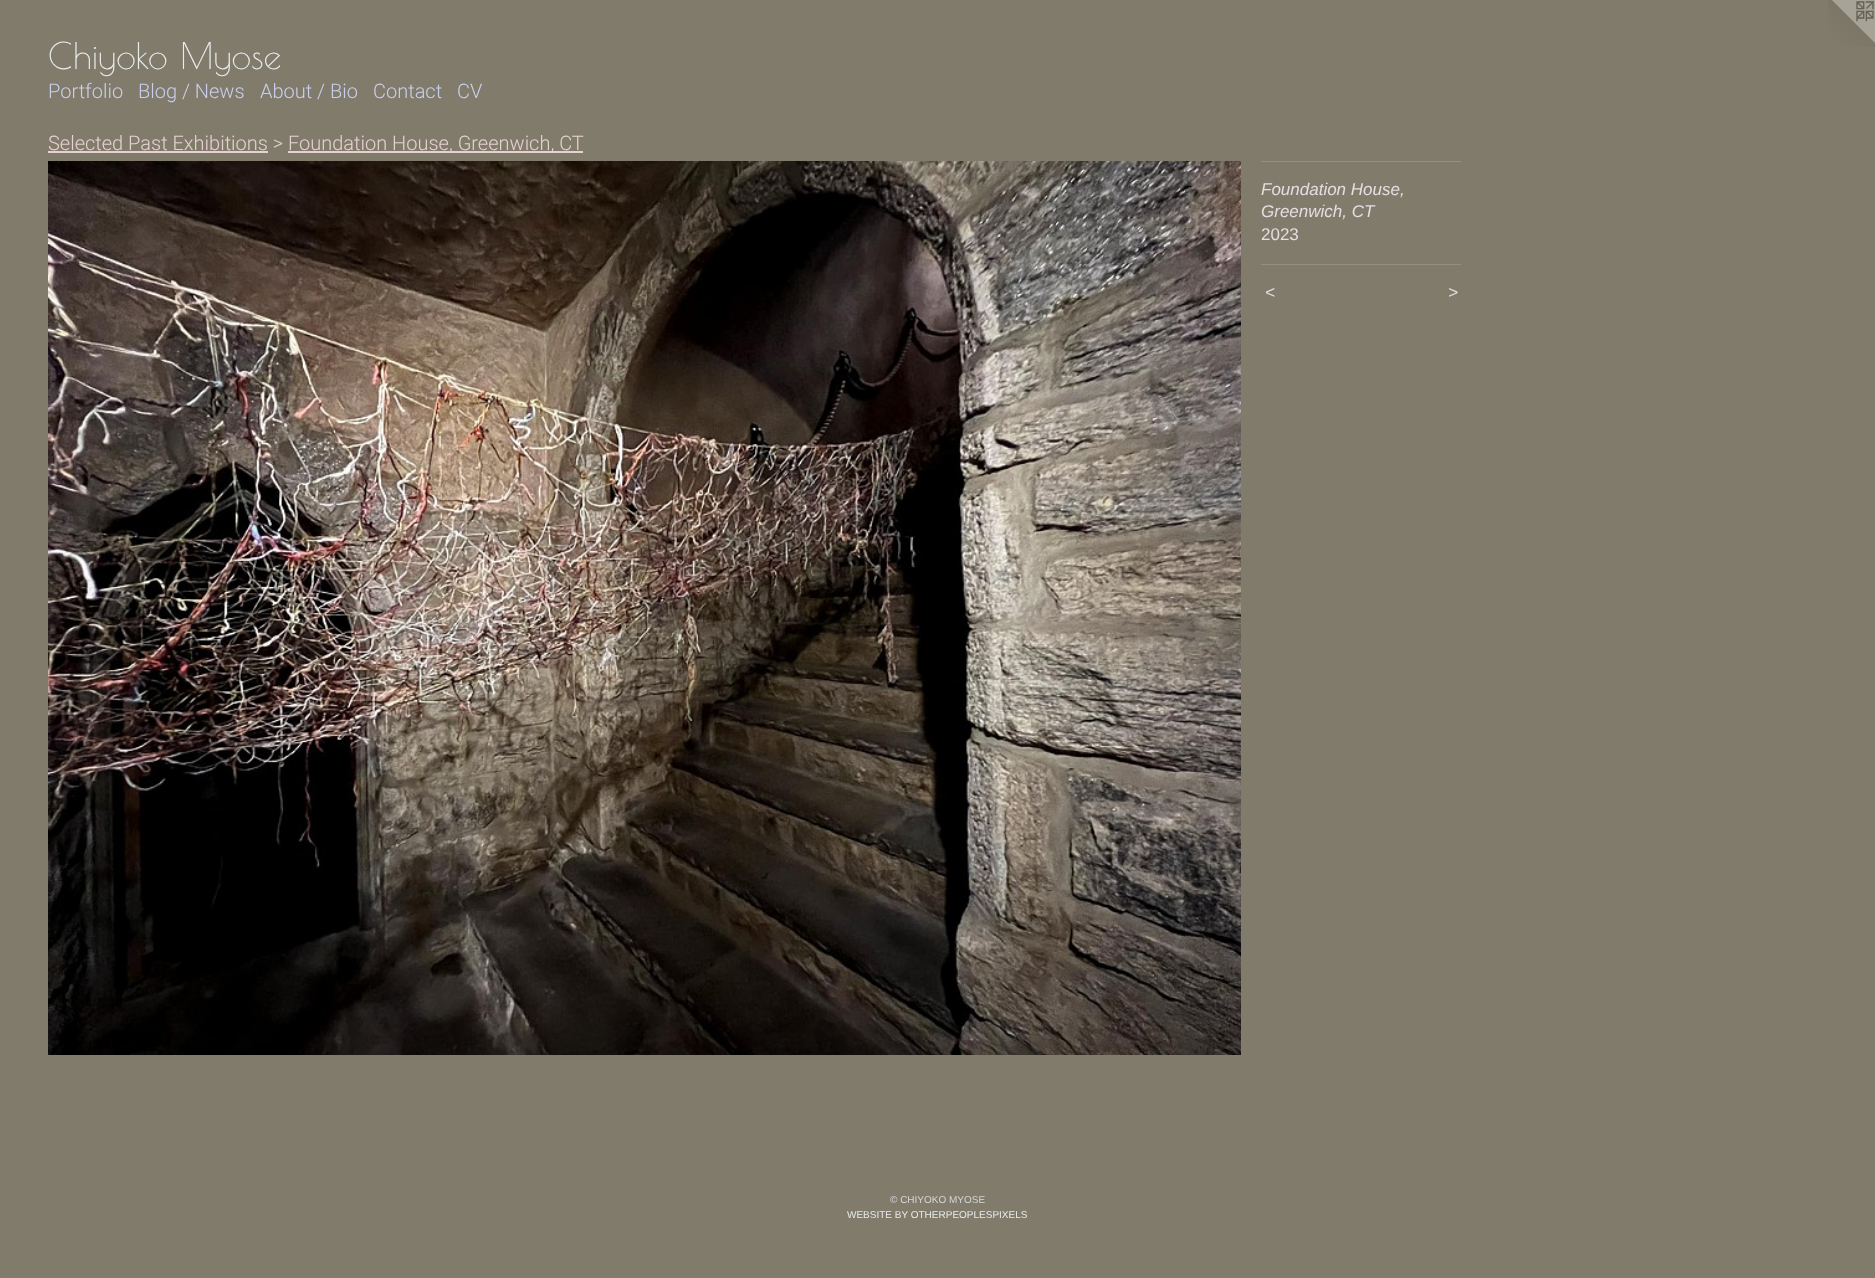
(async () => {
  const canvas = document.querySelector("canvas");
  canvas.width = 1875;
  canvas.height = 1278;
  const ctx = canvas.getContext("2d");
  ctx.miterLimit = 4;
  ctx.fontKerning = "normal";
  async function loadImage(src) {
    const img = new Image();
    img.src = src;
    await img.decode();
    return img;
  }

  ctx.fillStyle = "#807b6b";
  ctx.fillRect(0, 0, 1875, 1278);
  ctx.drawImage(await loadImage("img/1.png"), 1828, 0, 47, 47);
  ctx.fillStyle = "#e7d0d2";
  ctx.fillRect(48, 151, 220, 2);
  ctx.fillRect(288, 151, 295, 2);
  ctx.drawImage(await loadImage("img/2.png"), 48, 161, 1193, 894);
  ctx.fillStyle = "#948f83";
  ctx.fillRect(1261, 161, 200, 1);
  ctx.fillRect(1261, 264, 200, 1);
  ctx.font = "36px Poiret One";
  ctx.fillStyle = "#e8ecee";
  ctx.fillText("Chiyoko Myose", 48, 69);
  ctx.font = "300 20px Roboto";
  ctx.fillStyle = "#caceed";
  for (const [text, x, y] of [
    ["Portfolio", 48, 98],
    ["Blog / News", 138, 98],
    ["About / Bio", 260, 98],
    ["Contact", 373, 98],
    ["CV", 457, 98],
  ]) {
    ctx.fillText(text, x, y);
  }
  ctx.fillStyle = "#e7d0d2";
  ctx.fillText("Selected Past Exhibitions >", 48, 150);
  ctx.fillText("Foundation House, Greenwich, CT", 288, 150);
  ctx.font = "italic 17px Liberation Sans";
  ctx.fillStyle = "#e3dee2";
  ctx.fillText("Foundation House,", 1261, 195);
  ctx.fillText("Greenwich, CT", 1261, 217);
  ctx.font = "17px Liberation Sans";
  ctx.fillText("2023", 1261, 240);
  ctx.letterSpacing = "1px";
  ctx.font = "italic 17px Liberation Sans";
  ctx.fillText("<", 1265, 298);
  ctx.fillText(">", 1448, 298);
  ctx.letterSpacing = "0px";
  ctx.font = "10px Liberation Sans";
  ctx.fillStyle = "#d6d6d6";
  ctx.fillText("© CHIYOKO MYOSE", 890, 1203);
  ctx.fillStyle = "#e8ecee";
  ctx.fillText("WEBSITE BY OTHERPEOPLESPIXELS", 847, 1218);
})();
